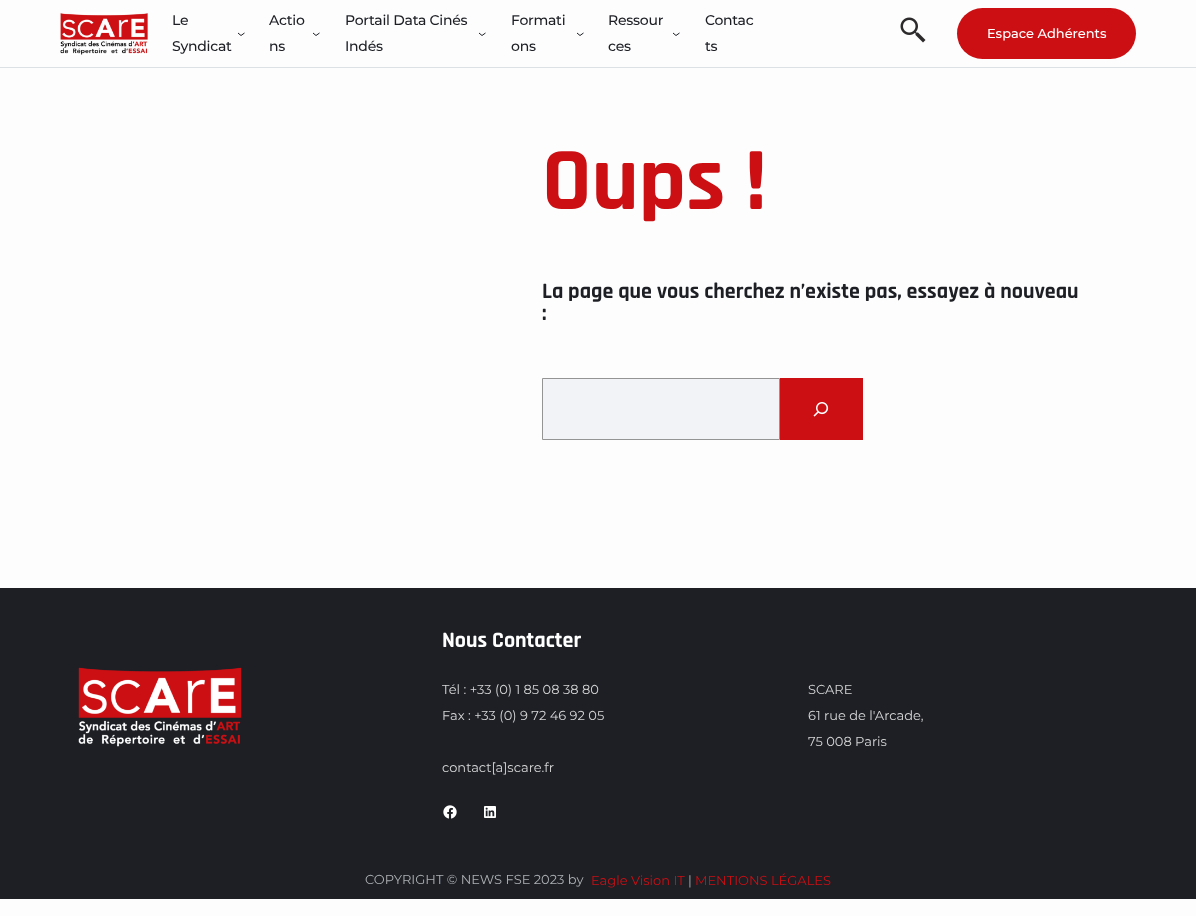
(async () => {
  const canvas = document.querySelector("canvas");
  canvas.width = 1196;
  canvas.height = 916;
  const ctx = canvas.getContext("2d");
  ctx.miterLimit = 4;
  ctx.fontKerning = "normal";
  async function loadImage(src) {
    const img = new Image();
    img.src = src;
    await img.decode();
    return img;
  }
  let path;

  ctx.fillStyle = "#fdfdfd";
  ctx.fillRect(0, 0, 1196, 916);
  ctx.fillStyle = "#dce1e5";
  ctx.fillRect(0, 67, 1196, 1);
  ctx.drawImage(await loadImage("img/1.png"), 60, 12, 88, 43);
  path = new Path2D("M238 33L241 35.5L244.5 33");
  ctx.strokeStyle = "#1d1f25";
  ctx.stroke(path);
  path = new Path2D("M313 33L316 35.5L319.5 33");
  ctx.stroke(path);
  path = new Path2D("M479 33L482 35.5L485.5 33");
  ctx.stroke(path);
  path = new Path2D("M577 33L580 35.5L583.5 33");
  ctx.stroke(path);
  path = new Path2D("M673 33L676 35.5L679.5 33");
  ctx.stroke(path);
  ctx.drawImage(await loadImage("img/2.png"), 900, 17, 26, 26);
  ctx.fillStyle = "#cc0f13";
  ctx.beginPath();
  ctx.roundRect(957, 8, 179, 51, 25.5);
  ctx.fill();
  ctx.fillStyle = "#f2f3f6";
  ctx.beginPath();
  ctx.rect(542.5, 378.5, 237, 61);
  ctx.fill();
  ctx.strokeStyle = "#949494";
  ctx.stroke();
  ctx.fillStyle = "#cc0f13";
  ctx.fillRect(780, 378, 83, 62);
  ctx.drawImage(await loadImage("img/3.png"), 813, 402, 16, 15);
  ctx.fillStyle = "#1d1f25";
  ctx.fillRect(0, 588, 1196, 311);
  ctx.drawImage(await loadImage("img/4.png"), 78, 667, 164, 80);
  ctx.drawImage(await loadImage("img/5.png"), 443, 805, 14, 14);
  ctx.drawImage(await loadImage("img/6.png"), 484, 806, 12, 12);
  ctx.letterSpacing = "-0.25px";
  ctx.font = "500 14px Montserrat";
  for (const [text, x, y] of [
    ["Le", 172, 25],
    ["Syndicat", 172, 51],
    ["Actio", 269, 25],
    ["ns", 269, 51],
    ["Portail Data Cinés", 345, 25],
    ["Indés", 345, 51],
    ["Formati", 511, 25],
    ["ons", 511, 51],
    ["Ressour", 608, 25],
    ["ces", 608, 51],
    ["Contac", 705, 25],
    ["ts", 705, 51],
  ]) {
    ctx.fillText(text, x, y);
  }
  ctx.letterSpacing = "0px";
  ctx.font = "500 13px Montserrat";
  ctx.fillStyle = "#ffffff";
  ctx.fillText("Espace Adhérents", 987, 38);
  ctx.font = "bold 90px Rajdhani";
  ctx.fillStyle = "#cc0f13";
  ctx.fillText("Oups !", 542, 209);
  ctx.font = "bold 22px Rajdhani";
  ctx.fillStyle = "#1d1f25";
  ctx.fillText("La page que vous cherchez n’existe pas, essayez à nouveau", 542, 298);
  ctx.fillText(":", 542, 320);
  ctx.fillStyle = "#ffffff";
  ctx.fillText("Nous Contacter", 442, 647);
  ctx.font = "13px Montserrat";
  ctx.fillStyle = "#d6d6d6";
  for (const [text, x, y] of [
    ["Tél : +33 (0) 1 85 08 38 80", 442, 694],
    ["Fax : +33 (0) 9 72 46 92 05", 442, 720],
    ["contact[a]scare.fr", 442, 772],
    ["SCARE", 808, 694],
    ["61 rue de l'Arcade,", 808, 720],
    ["75 008 Paris", 808, 746],
  ]) {
    ctx.fillText(text, x, y);
  }
  ctx.fillStyle = "#adb0b3";
  ctx.fillText("COPYRIGHT © NEWS FSE 2023 by", 365, 884);
  ctx.fillStyle = "#cc0f13";
  ctx.fillText("Eagle Vision IT", 591, 885);
  ctx.fillStyle = "#adb0b3";
  ctx.fillText("|", 688, 885);
  ctx.fillStyle = "#cc0f13";
  ctx.fillText("MENTIONS LÉGALES", 695, 885);
})();
